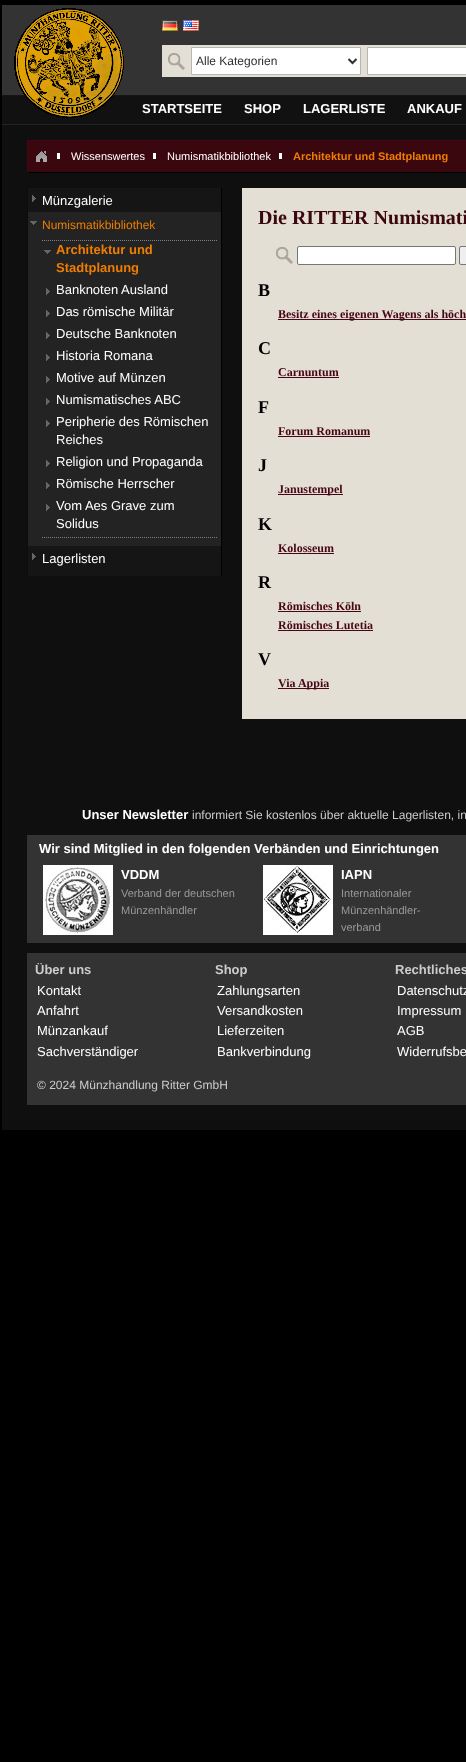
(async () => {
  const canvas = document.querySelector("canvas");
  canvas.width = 466;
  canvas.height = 1762;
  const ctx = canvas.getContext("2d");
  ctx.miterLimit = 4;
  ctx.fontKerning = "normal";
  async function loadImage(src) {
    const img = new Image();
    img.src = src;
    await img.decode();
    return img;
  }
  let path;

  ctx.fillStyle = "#000000";
  ctx.fillRect(0, 0, 466, 1762);
  for (const [x, y, w, h, color] of [
    [2, 5, 464, 90, "#333333"],
    [2, 95, 464, 1, "#151515"],
    [2, 96, 464, 28, "#111111"],
  ]) {
    ctx.fillStyle = color;
    ctx.fillRect(x, y, w, h);
  }
  ctx.drawImage(await loadImage("img/1.png"), 14, 8, 110, 110);
  ctx.drawImage(await loadImage("img/2.png"), 162, 20, 16, 11);
  ctx.drawImage(await loadImage("img/3.png"), 183, 20, 16, 11);
  ctx.fillStyle = "#e4dfd4";
  ctx.fillRect(162, 45, 304, 32);
  ctx.drawImage(await loadImage("img/4.png"), 168, 53, 17, 17);
  ctx.fillStyle = "#ffffff";
  ctx.beginPath();
  ctx.rect(191.5, 47.5, 169, 27);
  ctx.fill();
  ctx.strokeStyle = "#b6b6b6";
  ctx.stroke();
  path = new Path2D("M348.5 59L352.5 63L356.5 59");
  ctx.strokeStyle = "#2f2f2f";
  ctx.lineWidth = 2;
  ctx.stroke(path);
  ctx.beginPath();
  ctx.rect(367.5, 47.5, 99, 27);
  ctx.fill();
  ctx.strokeStyle = "#b6b6b6";
  ctx.lineWidth = 1;
  ctx.stroke();
  for (const [x, y, w, h, color] of [
    [2, 124, 464, 1, "#232323"],
    [2, 125, 464, 1005, "#0f0f0f"],
    [28, 141, 438, 31, "#3b070f"],
    [27, 140, 439, 1, "#470615"],
    [27, 172, 439, 1, "#000000"],
    [27, 140, 1, 33, "#470615"],
  ]) {
    ctx.fillStyle = color;
    ctx.fillRect(x, y, w, h);
  }
  ctx.drawImage(await loadImage("img/5.png"), 36, 151, 11, 11);
  for (const [x, y, w, h, color] of [
    [57, 153, 3, 6, "#ffffff"],
    [153, 153, 3, 6, "#ffffff"],
    [279, 153, 3, 6, "#ffffff"],
    [28, 188, 193, 388, "#151515"],
    [221, 188, 1, 388, "#000000"],
    [27, 188, 1, 388, "#0c0c0c"],
  ]) {
    ctx.fillStyle = color;
    ctx.fillRect(x, y, w, h);
  }
  ctx.drawImage(await loadImage("img/6.png"), 32, 195, 4, 7);
  ctx.fillStyle = "#232323";
  ctx.fillRect(28, 212, 193, 334);
  ctx.drawImage(await loadImage("img/7.png"), 30, 221, 7, 4);
  ctx.drawImage(await loadImage("img/7.png"), 44, 250, 7, 4);
  path = new Path2D("M42 240.5H217");
  ctx.strokeStyle = "#808080";
  ctx.setLineDash([1, 1]);
  ctx.stroke(path);
  ctx.drawImage(await loadImage("img/8.png"), 46, 288, 4, 7);
  ctx.drawImage(await loadImage("img/8.png"), 46, 310, 4, 7);
  ctx.drawImage(await loadImage("img/8.png"), 46, 332, 4, 7);
  ctx.drawImage(await loadImage("img/8.png"), 46, 354, 4, 7);
  ctx.drawImage(await loadImage("img/8.png"), 46, 376, 4, 7);
  ctx.drawImage(await loadImage("img/8.png"), 46, 398, 4, 7);
  ctx.drawImage(await loadImage("img/8.png"), 46, 420, 4, 7);
  ctx.drawImage(await loadImage("img/8.png"), 46, 460, 4, 7);
  ctx.drawImage(await loadImage("img/8.png"), 46, 482, 4, 7);
  ctx.drawImage(await loadImage("img/8.png"), 46, 504, 4, 7);
  path = new Path2D("M42 537.5H217");
  ctx.stroke(path);
  ctx.drawImage(await loadImage("img/6.png"), 32, 553, 4, 7);
  ctx.fillStyle = "#e4dfd4";
  ctx.fillRect(242, 188, 224, 531);
  ctx.drawImage(await loadImage("img/4.png"), 276, 247, 17, 17);
  ctx.fillStyle = "#ffffff";
  ctx.beginPath();
  ctx.roundRect(297.5, 246.5, 158, 18, 1.5);
  ctx.fill();
  ctx.strokeStyle = "#767676";
  ctx.setLineDash([]);
  ctx.stroke();
  ctx.fillStyle = "#efefef";
  ctx.beginPath();
  ctx.roundRect(459.5, 246.5, 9, 18, 1.5);
  ctx.fill();
  ctx.stroke();
  for (const [x, y, w, h, color] of [
    [278, 319, 188, 1, "#470615"],
    [278, 377, 61, 1, "#470615"],
    [278, 436, 92, 1, "#470615"],
    [278, 494, 65, 1, "#470615"],
    [278, 553, 56, 1, "#470615"],
    [278, 611, 83, 1, "#470615"],
    [278, 630, 95, 1, "#470615"],
    [278, 688, 51, 1, "#470615"],
    [27, 835, 439, 108, "#333333"],
  ]) {
    ctx.fillStyle = color;
    ctx.fillRect(x, y, w, h);
  }
  ctx.drawImage(await loadImage("img/9.png"), 43, 865, 70, 70);
  ctx.drawImage(await loadImage("img/10.png"), 263, 865, 70, 70);
  ctx.fillRect(27, 953, 439, 152);
  ctx.font = "12px Liberation Sans";
  ctx.fillStyle = "#2f2f2f";
  ctx.fillText("Alle Kategorien", 196, 65);
  ctx.font = "bold 13px Liberation Sans";
  ctx.fillStyle = "#ffffff";
  for (const [text, x, y] of [
    ["STARTSEITE", 142, 113],
    ["SHOP", 244, 113],
    ["LAGERLISTE", 303, 113],
    ["ANKAUF", 407, 113],
  ]) {
    ctx.fillText(text, x, y);
  }
  ctx.font = "11px Liberation Sans";
  ctx.fillText("Wissenswertes", 71, 160);
  ctx.fillText("Numismatikbibliothek", 167, 160);
  ctx.font = "bold 11px Liberation Sans";
  ctx.fillStyle = "#ee7d00";
  ctx.fillText("Architektur und Stadtplanung", 293, 160);
  ctx.font = "13px Liberation Sans";
  ctx.fillStyle = "#ffffff";
  ctx.fillText("Münzgalerie", 42, 205);
  ctx.font = "12px Liberation Sans";
  ctx.fillStyle = "#ee7d00";
  ctx.fillText("Numismatikbibliothek", 42, 229);
  ctx.font = "bold 13px Liberation Sans";
  ctx.fillText("Architektur und", 56, 254);
  ctx.fillText("Stadtplanung", 56, 272);
  ctx.font = "13px Liberation Sans";
  ctx.fillStyle = "#ffffff";
  for (const [text, x, y] of [
    ["Banknoten Ausland", 56, 294],
    ["Das römische Militär", 56, 316],
    ["Deutsche Banknoten", 56, 338],
    ["Historia Romana", 56, 360],
    ["Motive auf Münzen", 56, 382],
    ["Numismatisches ABC", 56, 404],
    ["Peripherie des Römischen", 56, 426],
    ["Reiches", 56, 444],
    ["Religion und Propaganda", 56, 466],
    ["Römische Herrscher", 56, 488],
    ["Vom Aes Grave zum", 56, 510],
    ["Solidus", 56, 528],
    ["Lagerlisten", 42, 563],
  ]) {
    ctx.fillText(text, x, y);
  }
  ctx.font = "bold 20px Liberation Serif";
  ctx.fillStyle = "#3b070f";
  ctx.fillText("Die RITTER Numismati", 258, 224);
  ctx.font = "bold 18px Liberation Serif";
  ctx.fillStyle = "#000000";
  ctx.fillText("B", 258, 296);
  ctx.font = "bold 12px Liberation Serif";
  ctx.fillStyle = "#470615";
  ctx.fillText("Besitz eines eigenen Wagens als höch", 278, 318);
  ctx.font = "bold 18px Liberation Serif";
  ctx.fillStyle = "#000000";
  ctx.fillText("C", 258, 354);
  ctx.font = "bold 12px Liberation Serif";
  ctx.fillStyle = "#470615";
  ctx.fillText("Carnuntum", 278, 376);
  ctx.font = "bold 18px Liberation Serif";
  ctx.fillStyle = "#000000";
  ctx.fillText("F", 258, 413);
  ctx.font = "bold 12px Liberation Serif";
  ctx.fillStyle = "#470615";
  ctx.fillText("Forum Romanum", 278, 435);
  ctx.font = "bold 18px Liberation Serif";
  ctx.fillStyle = "#000000";
  ctx.fillText("J", 258, 471);
  ctx.font = "bold 12px Liberation Serif";
  ctx.fillStyle = "#470615";
  ctx.fillText("Janustempel", 278, 493);
  ctx.font = "bold 18px Liberation Serif";
  ctx.fillStyle = "#000000";
  ctx.fillText("K", 258, 530);
  ctx.font = "bold 12px Liberation Serif";
  ctx.fillStyle = "#470615";
  ctx.fillText("Kolosseum", 278, 552);
  ctx.font = "bold 18px Liberation Serif";
  ctx.fillStyle = "#000000";
  ctx.fillText("R", 258, 588);
  ctx.font = "bold 12px Liberation Serif";
  ctx.fillStyle = "#470615";
  ctx.fillText("Römisches Köln", 278, 610);
  ctx.fillText("Römisches Lutetia", 278, 629);
  ctx.font = "bold 18px Liberation Serif";
  ctx.fillStyle = "#000000";
  ctx.fillText("V", 258, 665);
  ctx.font = "bold 12px Liberation Serif";
  ctx.fillStyle = "#470615";
  ctx.fillText("Via Appia", 278, 687);
  ctx.font = "bold 13px Liberation Sans";
  ctx.fillStyle = "#ffffff";
  ctx.fillText("Unser Newsletter", 82, 819);
  ctx.font = "12px Liberation Sans";
  ctx.fillStyle = "#cccccc";
  ctx.fillText("informiert Sie kostenlos über aktuelle Lagerlisten, in", 192, 819);
  ctx.font = "bold 13px Liberation Sans";
  ctx.fillStyle = "#ffffff";
  ctx.fillText("Wir sind Mitglied in den folgenden Verbänden und Einrichtungen", 39, 853);
  ctx.fillText("VDDM", 121, 879);
  ctx.font = "11px Liberation Sans";
  ctx.fillStyle = "#999999";
  ctx.fillText("Verband der deutschen", 121, 897);
  ctx.fillText("Münzenhändler", 121, 914);
  ctx.font = "bold 13px Liberation Sans";
  ctx.fillStyle = "#ffffff";
  ctx.fillText("IAPN", 341, 879);
  ctx.font = "11px Liberation Sans";
  ctx.fillStyle = "#999999";
  for (const [text, x, y] of [
    ["Internationaler", 341, 897],
    ["Münzenhändler-", 341, 914],
    ["verband", 341, 931],
  ]) {
    ctx.fillText(text, x, y);
  }
  ctx.font = "bold 13px Liberation Sans";
  ctx.fillStyle = "#cccccc";
  ctx.fillText("Über uns", 35, 974);
  ctx.font = "13px Liberation Sans";
  ctx.fillStyle = "#ffffff";
  for (const [text, x, y] of [
    ["Kontakt", 37, 995],
    ["Anfahrt", 37, 1015],
    ["Münzankauf", 37, 1035],
    ["Sachverständiger", 37, 1056],
  ]) {
    ctx.fillText(text, x, y);
  }
  ctx.font = "bold 13px Liberation Sans";
  ctx.fillStyle = "#cccccc";
  ctx.fillText("Shop", 215, 974);
  ctx.font = "13px Liberation Sans";
  ctx.fillStyle = "#ffffff";
  for (const [text, x, y] of [
    ["Zahlungsarten", 217, 995],
    ["Versandkosten", 217, 1015],
    ["Lieferzeiten", 217, 1035],
    ["Bankverbindung", 217, 1056],
  ]) {
    ctx.fillText(text, x, y);
  }
  ctx.font = "bold 13px Liberation Sans";
  ctx.fillStyle = "#cccccc";
  ctx.fillText("Rechtliches", 395, 974);
  ctx.font = "13px Liberation Sans";
  ctx.fillStyle = "#ffffff";
  for (const [text, x, y] of [
    ["Datenschutz", 397, 995],
    ["Impressum", 397, 1015],
    ["AGB", 397, 1035],
    ["Widerrufsbe", 397, 1056],
  ]) {
    ctx.fillText(text, x, y);
  }
  ctx.font = "12px Liberation Sans";
  ctx.fillStyle = "#cccccc";
  ctx.fillText("© 2024 Münzhandlung Ritter GmbH", 37, 1089);
})();
